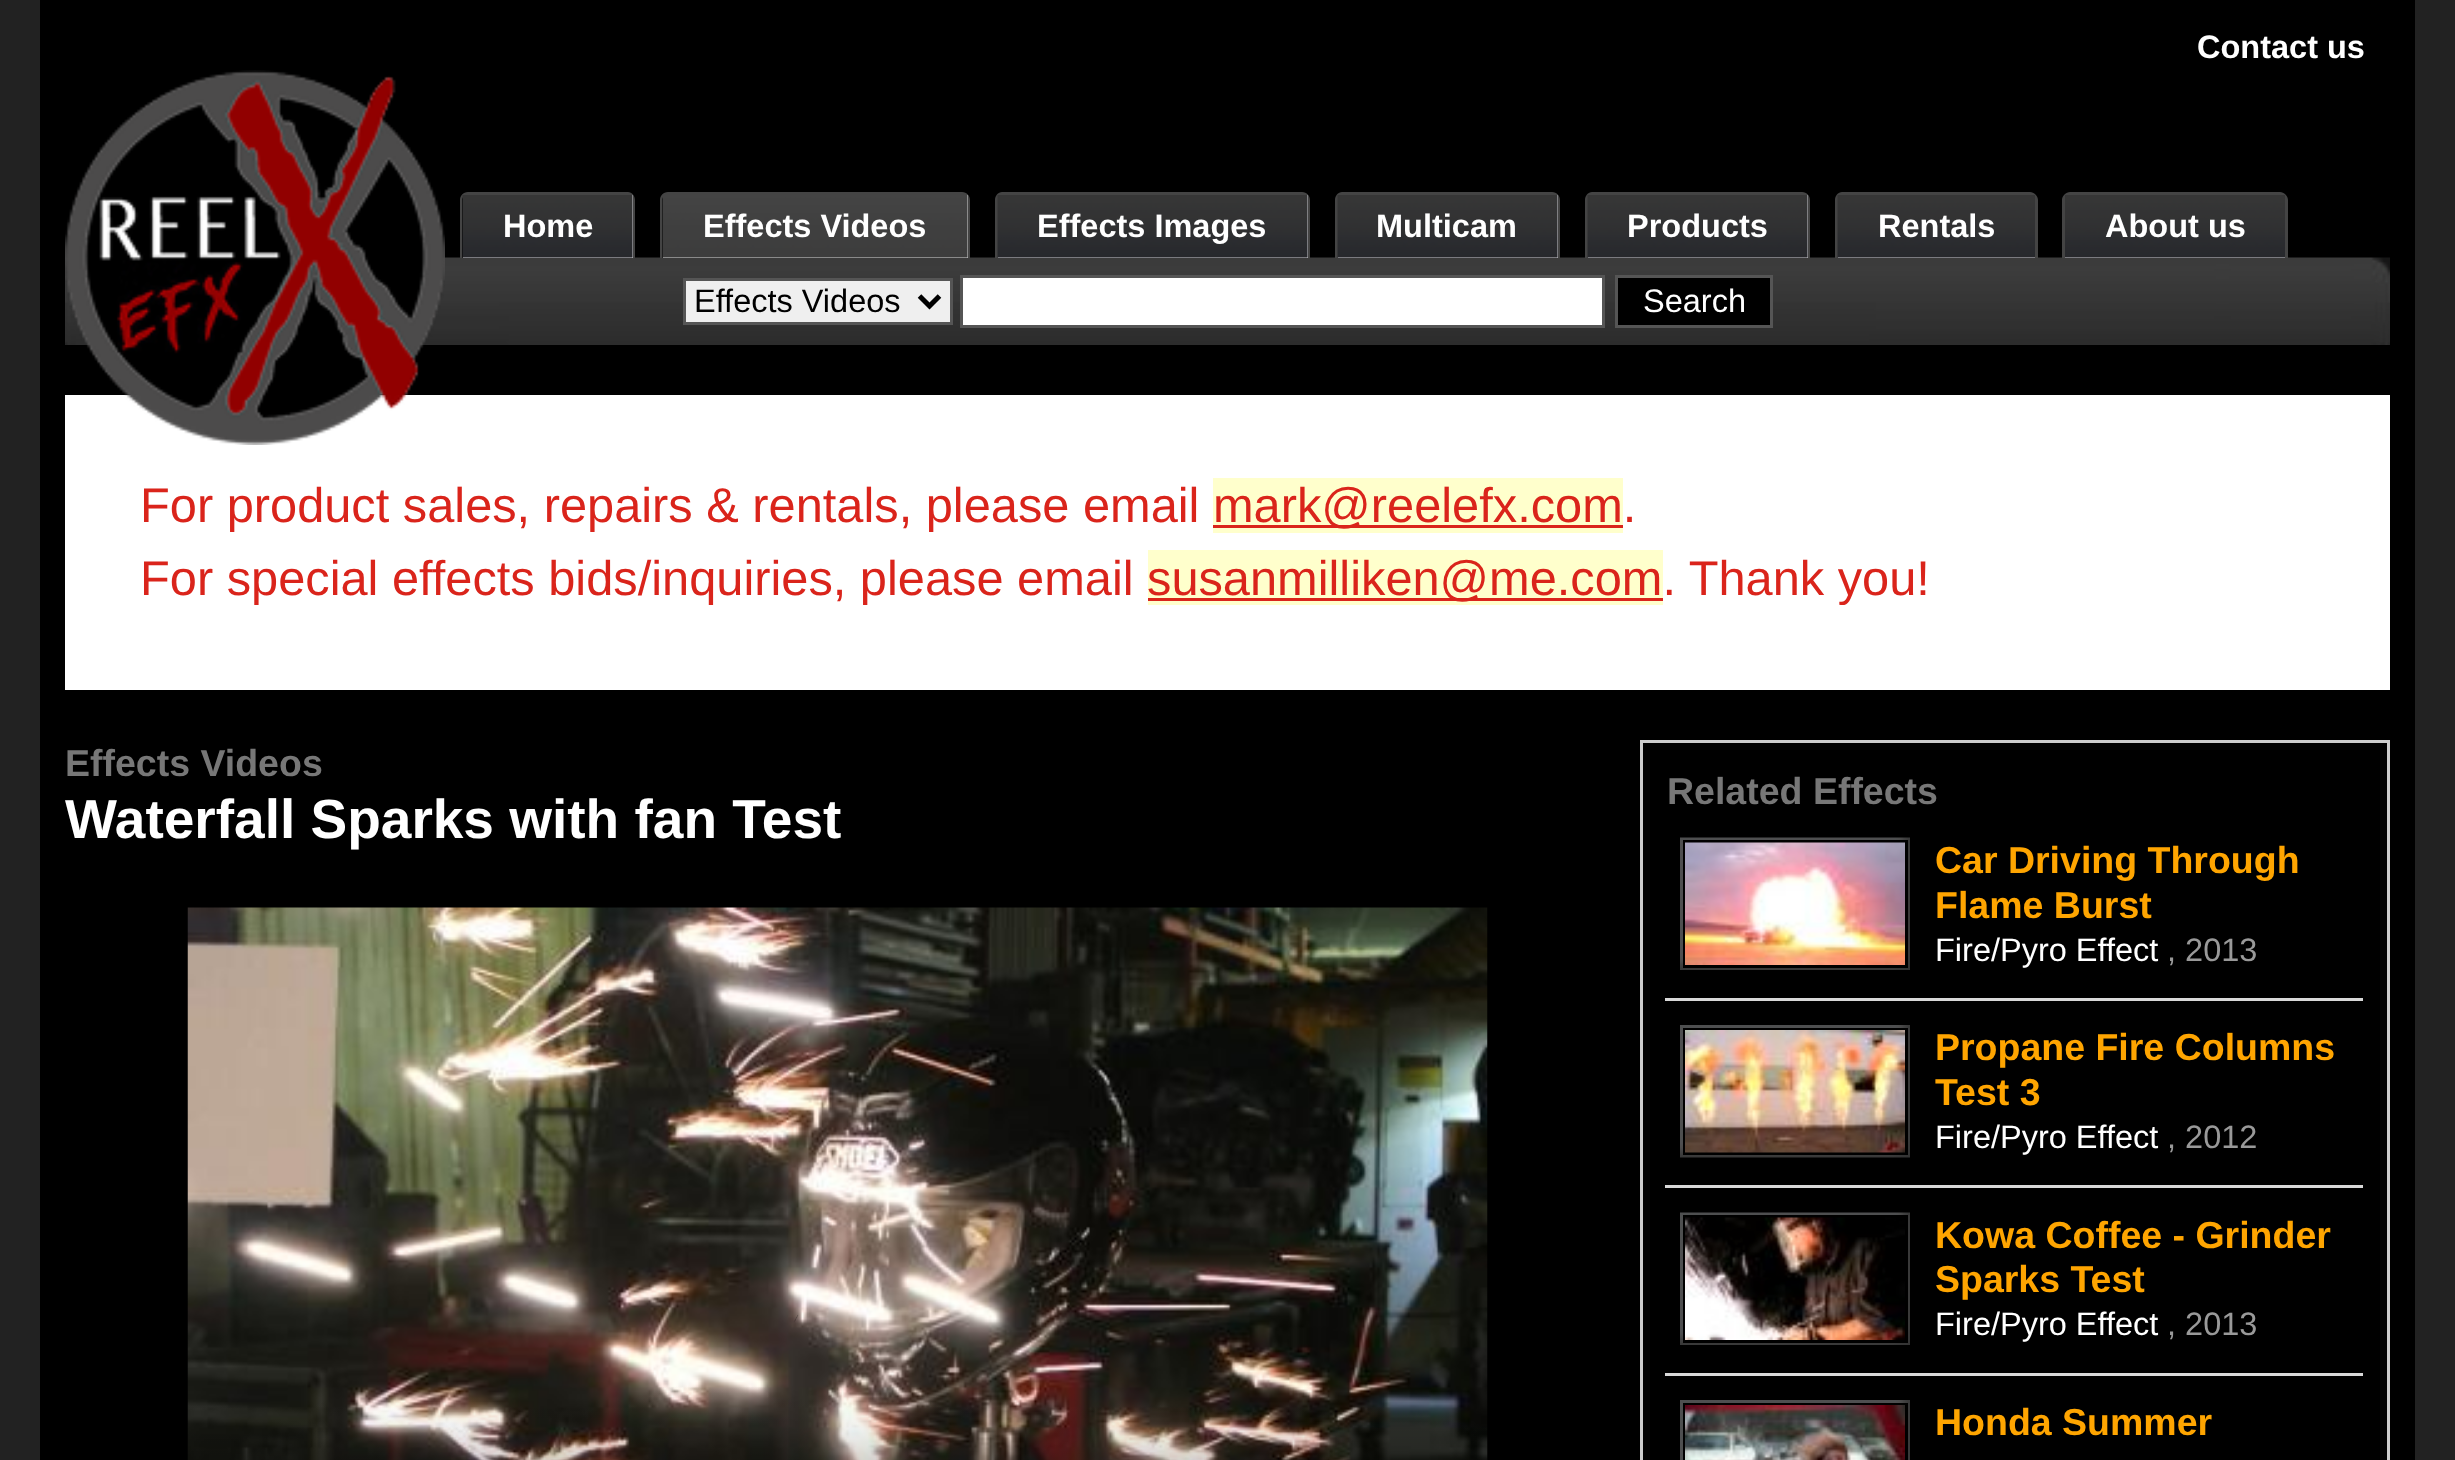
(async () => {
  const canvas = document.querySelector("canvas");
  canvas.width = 2455;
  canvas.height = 1460;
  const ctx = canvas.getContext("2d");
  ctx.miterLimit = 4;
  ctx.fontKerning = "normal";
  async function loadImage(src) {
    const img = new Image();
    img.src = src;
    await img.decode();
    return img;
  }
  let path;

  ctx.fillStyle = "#222222";
  ctx.fillRect(0, 0, 2455, 1460);
  ctx.fillStyle = "#000000";
  ctx.fillRect(40, 0, 2375, 1460);
  ctx.drawImage(await loadImage("img/9.png"), 65, 257, 2325, 88);
  ctx.fillStyle = "#ffffff";
  ctx.fillRect(65, 395, 2325, 295);
  ctx.drawImage(await loadImage("img/1.png"), 65, 70, 380, 375);
  ctx.fillStyle = "#444444";
  path = new Path2D("M468 192H628C632 192 635 196 635 200V258H460V200C460 196 463 192 468 192ZM468 195H628C630 195 632 197 632 200V258H462V200C462 197 465 195 468 195Z");
  ctx.fill(path, "evenodd");
  ctx.fillStyle = "#cccdd2";
  ctx.fillRect(463, 195, 170, 63);
  ctx.drawImage(await loadImage("img/2.png"), 462, 195, 171, 63);
  ctx.fillStyle = "#444444";
  path = new Path2D("M668 192H962C967 192 970 196 970 200V258H660V200C660 196 663 192 668 192ZM668 195H962C965 195 968 197 968 200V258H662V200C662 197 665 195 668 195Z");
  ctx.fill(path, "evenodd");
  ctx.fillStyle = "#d6d6d6";
  ctx.fillRect(663, 195, 305, 63);
  ctx.drawImage(await loadImage("img/3.png"), 662, 195, 306, 63);
  ctx.fillStyle = "#444444";
  path = new Path2D("M1002 192H1302C1307 192 1310 196 1310 200V258H995V200C995 196 998 192 1002 192ZM1002 195H1302C1305 195 1308 197 1308 200V258H998V200C998 197 1000 195 1002 195Z");
  ctx.fill(path, "evenodd");
  ctx.fillStyle = "#cccdd2";
  ctx.fillRect(998, 195, 310, 63);
  ctx.drawImage(await loadImage("img/4.png"), 997, 195, 311, 63);
  ctx.fillStyle = "#444444";
  path = new Path2D("M1342 192H1552C1557 192 1560 196 1560 200V258H1335V200C1335 196 1338 192 1342 192ZM1342 195H1552C1555 195 1558 197 1558 200V258H1338V200C1338 197 1340 195 1342 195Z");
  ctx.fill(path, "evenodd");
  ctx.fillStyle = "#cccdd2";
  ctx.fillRect(1338, 195, 220, 63);
  ctx.drawImage(await loadImage("img/5.png"), 1337, 195, 221, 63);
  ctx.fillStyle = "#444444";
  path = new Path2D("M1592 192H1802C1807 192 1810 196 1810 200V258H1585V200C1585 196 1588 192 1592 192ZM1592 195H1802C1805 195 1808 197 1808 200V258H1588V200C1588 197 1590 195 1592 195Z");
  ctx.fill(path, "evenodd");
  ctx.fillStyle = "#cccdd2";
  ctx.fillRect(1588, 195, 220, 63);
  ctx.drawImage(await loadImage("img/6.png"), 1587, 195, 221, 63);
  ctx.fillStyle = "#444444";
  path = new Path2D("M1842 192H2030C2034 192 2038 196 2038 200V258H1835V200C1835 196 1838 192 1842 192ZM1842 195H2030C2033 195 2035 197 2035 200V258H1838V200C1838 197 1840 195 1842 195Z");
  ctx.fill(path, "evenodd");
  ctx.fillStyle = "#cccdd2";
  ctx.fillRect(1838, 257, 197, 1);
  ctx.drawImage(await loadImage("img/7.png"), 1837, 195, 198, 63);
  ctx.fillStyle = "#444444";
  path = new Path2D("M2070 192H2280C2284 192 2288 196 2288 200V258H2062V200C2062 196 2066 192 2070 192ZM2070 195H2280C2283 195 2285 197 2285 200V258H2065V200C2065 197 2067 195 2070 195Z");
  ctx.fill(path, "evenodd");
  ctx.fillStyle = "#cccdd2";
  ctx.fillRect(2065, 257, 220, 1);
  ctx.drawImage(await loadImage("img/8.png"), 2065, 195, 220, 63);
  ctx.fillStyle = "#efefef";
  ctx.beginPath();
  ctx.rect(684.5, 279.5, 267, 44);
  ctx.fill();
  ctx.strokeStyle = "#555555";
  ctx.lineWidth = 3;
  ctx.stroke();
  path = new Path2D("M919.5 296L929.5 306L939.5 296");
  ctx.strokeStyle = "#000000";
  ctx.lineWidth = 5;
  ctx.stroke(path);
  ctx.fillStyle = "#ffffff";
  ctx.beginPath();
  ctx.rect(961.5, 276.5, 642, 50);
  ctx.fill();
  ctx.strokeStyle = "#555555";
  ctx.lineWidth = 3;
  ctx.stroke();
  ctx.fillStyle = "#000000";
  ctx.beginPath();
  ctx.rect(1616.5, 276.5, 155, 50);
  ctx.fill();
  ctx.stroke();
  for (const [x, y, w, h, color] of [
    [1213, 478, 410, 55, "#ffffcc"],
    [1213, 525, 410, 3, "#da241b"],
    [1148, 550, 515, 55, "#ffffcc"],
    [1148, 598, 515, 3, "#da241b"],
  ]) {
    ctx.fillStyle = color;
    ctx.fillRect(x, y, w, h);
  }
  ctx.drawImage(await loadImage("img/10.png"), 187, 907, 1301, 553);
  ctx.strokeStyle = "#cccccc";
  ctx.strokeRect(1641.5, 741.5, 747, 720);
  ctx.drawImage(await loadImage("img/11.png"), 1680, 837, 230, 133);
  ctx.strokeStyle = "#000000";
  ctx.strokeRect(1684.5, 841.5, 222, 125);
  ctx.drawImage(await loadImage("img/12.png"), 1685, 842, 220, 123);
  ctx.fillStyle = "#d8d8d8";
  ctx.fillRect(1665, 998, 698, 3);
  ctx.drawImage(await loadImage("img/13.png"), 1680, 1025, 230, 133);
  ctx.strokeRect(1684.5, 1029.5, 222, 124);
  ctx.drawImage(await loadImage("img/14.png"), 1685, 1030, 220, 123);
  ctx.fillRect(1665, 1185, 698, 3);
  ctx.drawImage(await loadImage("img/11.png"), 1680, 1212, 230, 133);
  ctx.strokeRect(1684.5, 1216.5, 222, 125);
  ctx.drawImage(await loadImage("img/15.png"), 1685, 1217, 220, 123);
  ctx.fillRect(1665, 1373, 698, 3);
  ctx.drawImage(await loadImage("img/16.png"), 1680, 1400, 230, 60);
  ctx.strokeRect(1684.5, 1404.5, 222, 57);
  ctx.drawImage(await loadImage("img/17.png"), 1685, 1405, 220, 55);
  ctx.font = "bold 32.5px Liberation Sans";
  ctx.fillStyle = "#ffffff";
  for (const [text, x, y] of [
    ["Contact us", 2197, 58],
    ["Home", 503, 237],
    ["Effects Videos", 703, 237],
    ["Effects Images", 1037, 237],
    ["Multicam", 1376, 237],
    ["Products", 1627, 237],
    ["Rentals", 1878, 237],
    ["About us", 2105, 237],
  ]) {
    ctx.fillText(text, x, y);
  }
  ctx.font = "32.5px Liberation Sans";
  ctx.fillStyle = "#000000";
  ctx.fillText("Effects Videos", 694, 312);
  ctx.fillStyle = "#ffffff";
  ctx.fillText("Search", 1643, 312);
  ctx.font = "48.75px Liberation Sans";
  ctx.fillStyle = "#da241b";
  for (const [text, x, y] of [
    ["For product sales, repairs & rentals, please email", 140, 522],
    ["mark@reelefx.com.", 1213, 522],
    ["For special effects bids/inquiries, please email", 140, 595],
    ["susanmilliken@me.com. Thank you!", 1147, 595],
  ]) {
    ctx.fillText(text, x, y);
  }
  ctx.font = "bold 37.5px Liberation Sans";
  ctx.fillStyle = "#777777";
  ctx.fillText("Effects Videos", 65, 776);
  ctx.font = "bold 55px Liberation Sans";
  ctx.fillStyle = "#ffffff";
  ctx.fillText("Waterfall Sparks with fan Test", 65, 838);
  ctx.font = "bold 37.5px Liberation Sans";
  ctx.fillStyle = "#777777";
  ctx.fillText("Related Effects", 1667, 804);
  ctx.fillStyle = "#ffa500";
  ctx.fillText("Car Driving Through", 1935, 873);
  ctx.fillText("Flame Burst", 1935, 918);
  ctx.font = "32.5px Liberation Sans";
  ctx.fillStyle = "#ffffff";
  ctx.fillText("Fire/Pyro Effect", 1935, 961);
  ctx.fillStyle = "#999999";
  ctx.fillText(", 2013", 2167, 961);
  ctx.font = "bold 37.5px Liberation Sans";
  ctx.fillStyle = "#ffa500";
  ctx.fillText("Propane Fire Columns", 1935, 1060);
  ctx.fillText("Test 3", 1935, 1105);
  ctx.font = "32.5px Liberation Sans";
  ctx.fillStyle = "#ffffff";
  ctx.fillText("Fire/Pyro Effect", 1935, 1148);
  ctx.fillStyle = "#999999";
  ctx.fillText(", 2012", 2167, 1148);
  ctx.font = "bold 37.5px Liberation Sans";
  ctx.fillStyle = "#ffa500";
  ctx.fillText("Kowa Coffee - Grinder", 1935, 1248);
  ctx.fillText("Sparks Test", 1935, 1292);
  ctx.font = "32.5px Liberation Sans";
  ctx.fillStyle = "#ffffff";
  ctx.fillText("Fire/Pyro Effect", 1935, 1335);
  ctx.fillStyle = "#999999";
  ctx.fillText(", 2013", 2167, 1335);
  ctx.font = "bold 37.5px Liberation Sans";
  ctx.fillStyle = "#ffa500";
  ctx.fillText("Honda Summer", 1935, 1435);
})();
